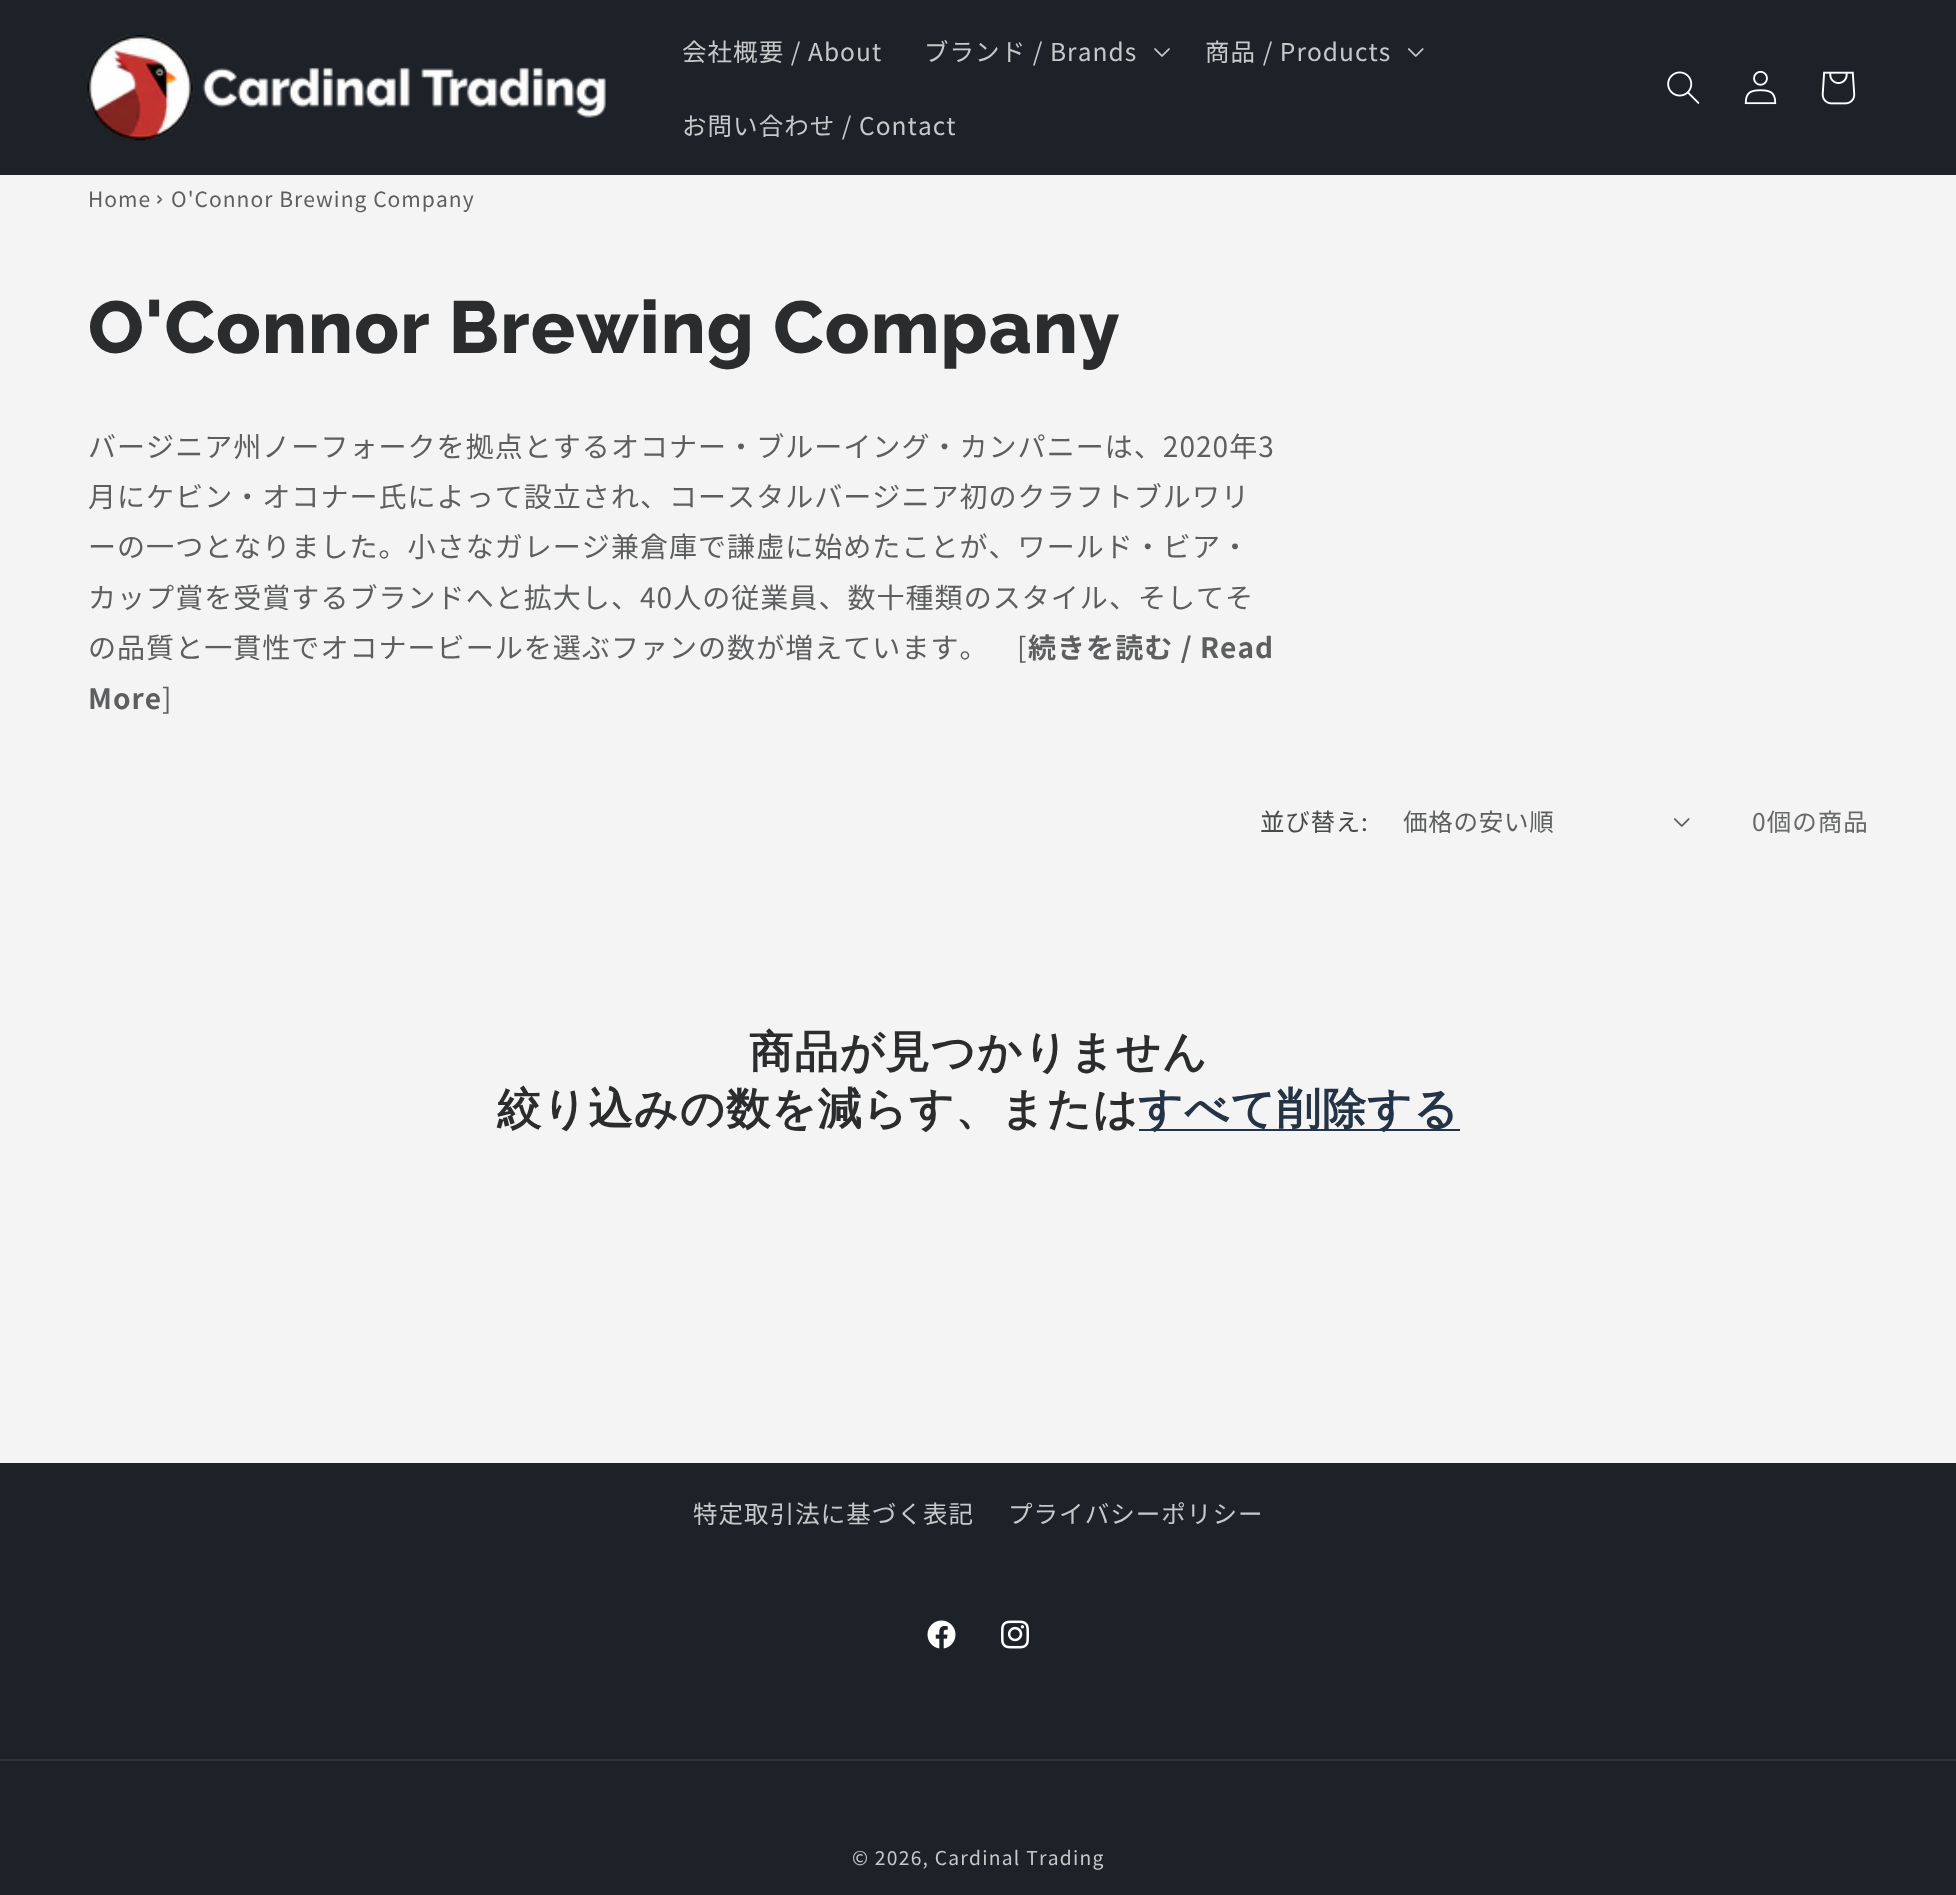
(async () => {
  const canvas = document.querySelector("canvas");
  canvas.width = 1956;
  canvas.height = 1895;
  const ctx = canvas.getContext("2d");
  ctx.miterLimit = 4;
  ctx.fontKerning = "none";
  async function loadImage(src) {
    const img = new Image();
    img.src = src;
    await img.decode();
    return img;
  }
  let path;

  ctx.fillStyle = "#f4f4f4";
  ctx.fillRect(0, 0, 1956, 1895);
  ctx.fillStyle = "#1c2228";
  ctx.fillRect(0, 0, 1956, 175);
  ctx.drawImage(await loadImage("img/1.png"), 87, 35, 519, 106);
  ctx.drawImage(await loadImage("img/2.png"), 1154, 48, 16, 9);
  ctx.drawImage(await loadImage("img/3.png"), 1408, 48, 16, 9);
  ctx.drawImage(await loadImage("img/4.png"), 1667, 71, 33, 33);
  ctx.drawImage(await loadImage("img/5.png"), 1744, 70, 33, 35);
  ctx.drawImage(await loadImage("img/6.png"), 1821, 71, 35, 34);
  ctx.fillStyle = "#5d5e5f";
  path = new Path2D("M158 195L162.5 199.5H160L157 196Z");
  ctx.fill(path);
  path = new Path2D("M162.5 199.5L158 204L157 202.5L160 199.5Z");
  ctx.fill(path);
  ctx.drawImage(await loadImage("img/7.png"), 1674, 818, 16, 9);
  ctx.fillStyle = "#253347";
  ctx.fillRect(1139, 1129, 321, 2);
  ctx.fillStyle = "#1c2228";
  ctx.fillRect(0, 1463, 1956, 432);
  ctx.drawImage(await loadImage("img/8.png"), 927, 1620, 29, 29);
  ctx.drawImage(await loadImage("img/9.png"), 1001, 1620, 28, 29);
  ctx.fillStyle = "#2e3439";
  ctx.fillRect(0, 1759, 1956, 2);
  ctx.letterSpacing = "1.05px";
  ctx.font = "24.5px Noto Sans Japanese";
  ctx.fillStyle = "#c6c8c9";
  for (const [text, x, y] of [
    ["会社概要 / About", 682, 61],
    ["ブランド / Brands", 924, 61],
    ["商品 / Products", 1205, 61],
    ["お問い合わせ / Contact", 682, 135],
  ]) {
    ctx.fillText(text, x, y);
  }
  ctx.font = "21px Noto Sans Japanese";
  ctx.fillStyle = "#5d5e5f";
  ctx.fillText("Home", 88, 207);
  ctx.fillText("O'Connor Brewing Company", 171, 207);
  ctx.letterSpacing = "1.1px";
  ctx.font = "800 73.5px Raleway";
  ctx.fillStyle = "#2b2c2d";
  ctx.fillText("O'Connor Brewing Company", 88, 353);
  ctx.letterSpacing = "1.05px";
  ctx.font = "28px Noto Sans Japanese";
  ctx.fillStyle = "#5d5e5f";
  for (const [text, x, y] of [
    ["バージニア州ノーフォークを拠点とするオコナー・ブルーイング・カンパニーは、2020年3", 88, 457],
    ["月にケビン・オコナー氏によって設立され、コースタルバージニア初のクラフトブルワリ", 88, 507],
    ["ーの一つとなりました。小さなガレージ兼倉庫で謙虚に始めたことが、ワールド・ビア・", 88, 557],
    ["カップ賞を受賞するブランドへと拡大し、40人の従業員、数十種類のスタイル、そしてそ", 88, 608],
    ["の品質と一貫性でオコナービールを選ぶファンの数が増えています。", 88, 658],
    ["[", 1017, 658],
  ]) {
    ctx.fillText(text, x, y);
  }
  ctx.font = "bold 28px Noto Sans Japanese";
  ctx.fillText("続きを読む / Read", 1028, 658);
  ctx.fillText("More", 88, 709);
  ctx.font = "28px Noto Sans Japanese";
  ctx.fillText("]", 162, 709);
  ctx.letterSpacing = "0.75px";
  ctx.font = "24.5px Noto Sans Japanese";
  ctx.fillStyle = "#494a4b";
  ctx.fillText("並び替え:", 1260, 831);
  ctx.fillStyle = "#5d5e5f";
  ctx.fillText("価格の安い順", 1403, 831);
  ctx.letterSpacing = "1.05px";
  ctx.fillStyle = "#676869";
  ctx.fillText("0個の商品", 1752, 831);
  ctx.letterSpacing = "1.1px";
  ctx.font = "bold 44.1px WenQuanYi Zen Hei";
  ctx.fillStyle = "#2b2c2d";
  ctx.fillText("商品が見つかりません", 749, 1067);
  ctx.fillText("絞り込みの数を減らす、または", 497, 1124);
  ctx.fillStyle = "#243346";
  ctx.fillText("すべて削除する", 1138, 1124);
  ctx.letterSpacing = "1.05px";
  ctx.font = "24.5px Noto Sans Japanese";
  ctx.fillStyle = "#c6c8c9";
  ctx.fillText("特定取引法に基づく表記", 693, 1523);
  ctx.fillText("プライバシーポリシー", 1008, 1523);
  ctx.letterSpacing = "1.25px";
  ctx.font = "19.25px Noto Sans Japanese";
  ctx.fillText("© 2026, Cardinal Trading", 852, 1865);
})();
